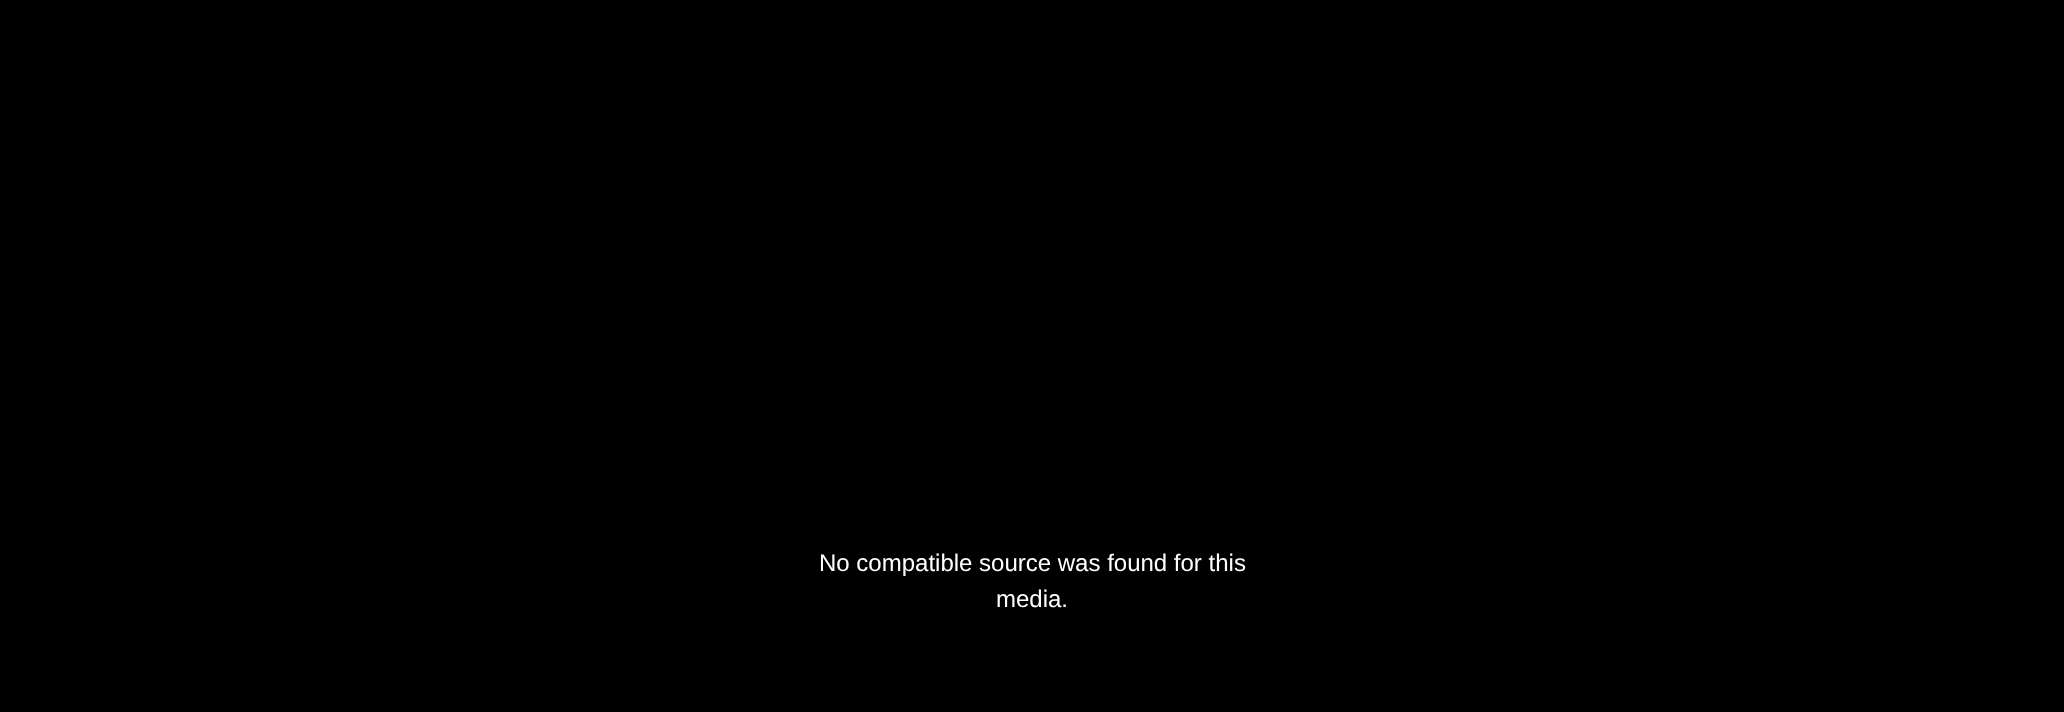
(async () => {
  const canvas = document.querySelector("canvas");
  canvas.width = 2064;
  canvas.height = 712;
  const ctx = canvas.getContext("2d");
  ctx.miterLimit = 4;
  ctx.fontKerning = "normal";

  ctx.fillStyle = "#000000";
  ctx.fillRect(0, 0, 2064, 712);
  ctx.font = "24px Liberation Sans";
  ctx.fillStyle = "#ffffff";
  ctx.fillText("No compatible source was found for this", 819, 571);
  ctx.fillText("media.", 996, 607);
})();
